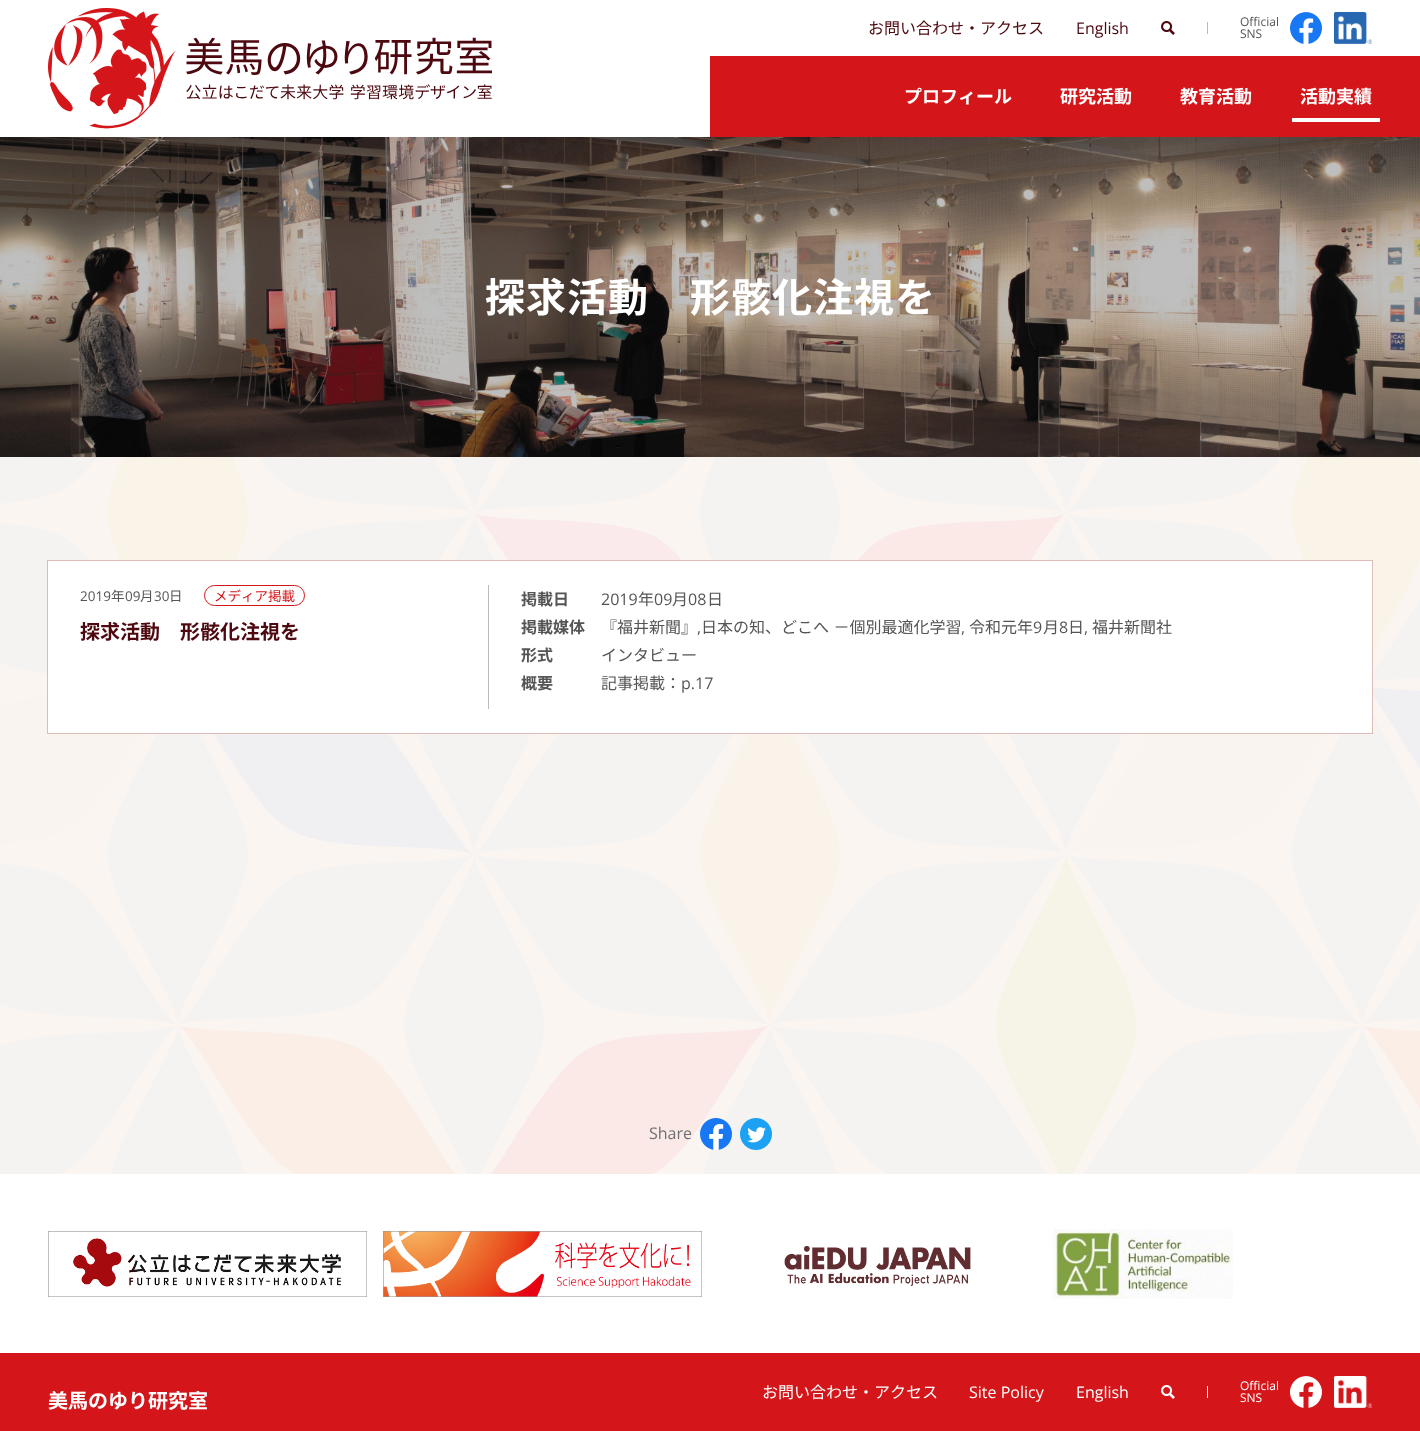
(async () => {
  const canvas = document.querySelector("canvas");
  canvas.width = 1420;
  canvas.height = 1431;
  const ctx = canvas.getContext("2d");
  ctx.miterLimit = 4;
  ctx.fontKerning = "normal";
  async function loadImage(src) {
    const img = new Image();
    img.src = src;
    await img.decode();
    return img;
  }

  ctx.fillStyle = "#fbf5f2";
  ctx.fillRect(0, 0, 1420, 1431);
  ctx.fillStyle = "#ffffff";
  ctx.fillRect(0, 0, 1420, 137);
  ctx.drawImage(await loadImage("img/1.png"), 48, 8, 128, 121);
  ctx.drawImage(await loadImage("img/2.png"), 186, 37, 306, 63);
  ctx.drawImage(await loadImage("img/3.png"), 1161, 21, 14, 14);
  ctx.fillStyle = "#bbbbbb";
  ctx.fillRect(1207, 22, 1, 12);
  ctx.drawImage(await loadImage("img/4.png"), 1290, 12, 32, 32);
  ctx.drawImage(await loadImage("img/5.png"), 1334, 12, 38, 32);
  ctx.fillStyle = "#d4161a";
  ctx.fillRect(710, 56, 710, 81);
  ctx.fillStyle = "#ffffff";
  ctx.fillRect(1292, 118, 88, 4);
  ctx.drawImage(await loadImage("img/6.png"), 0, 137, 1420, 320);
  ctx.drawImage(await loadImage("img/7.png"), 0, 457, 1420, 717);
  ctx.strokeStyle = "#debbb6";
  ctx.strokeRect(47.5, 560.5, 1325, 173);
  ctx.fillRect(48, 561, 1324, 172);
  ctx.fillStyle = "#bcbcbc";
  ctx.fillRect(488, 585, 1, 124);
  ctx.beginPath();
  ctx.roundRect(204.5, 585.5, 100, 20, 10);
  ctx.strokeStyle = "#d4161a";
  ctx.stroke();
  ctx.fillStyle = "#d4161a";
  ctx.fillRect(0, 1353, 1420, 78);
  ctx.drawImage(await loadImage("img/8.png"), 700, 1118, 32, 32);
  ctx.drawImage(await loadImage("img/9.png"), 740, 1118, 32, 32);
  ctx.fillStyle = "#ffffff";
  ctx.fillRect(0, 1174, 1420, 179);
  ctx.drawImage(await loadImage("img/10.png"), 48, 1231, 319, 66);
  ctx.drawImage(await loadImage("img/11.png"), 383, 1231, 319, 66);
  ctx.drawImage(await loadImage("img/12.png"), 784, 1246, 187, 40);
  ctx.drawImage(await loadImage("img/13.png"), 1053, 1229, 180, 70);
  ctx.drawImage(await loadImage("img/14.png"), 1161, 1385, 14, 14);
  ctx.fillRect(1207, 1386, 1, 12);
  ctx.drawImage(await loadImage("img/15.png"), 1290, 1376, 32, 32);
  ctx.drawImage(await loadImage("img/16.png"), 1334, 1376, 38, 32);
  ctx.font = "16px Noto Sans JP";
  ctx.fillStyle = "#4d090f";
  ctx.fillText("お問い合わせ・アクセス", 868, 34);
  ctx.font = "16px Open Sans";
  ctx.fillText("English", 1076, 34);
  ctx.font = "12px Open Sans";
  ctx.fillStyle = "#555555";
  ctx.fillText("Official", 1240, 26);
  ctx.fillText("SNS", 1240, 38);
  ctx.font = "bold 18px Noto Sans JP";
  ctx.fillStyle = "#ffffff";
  for (const [text, x, y] of [
    ["プロフィール", 904, 103],
    ["研究活動", 1060, 103],
    ["教育活動", 1180, 103],
    ["活動実績", 1300, 103],
  ]) {
    ctx.fillText(text, x, y);
  }
  ctx.letterSpacing = "1px";
  ctx.font = "bold 40px Noto Sans JP";
  ctx.fillText("探求活動　形骸化注視を", 485, 312);
  ctx.letterSpacing = "0px";
  ctx.font = "13.5px Open Sans";
  ctx.fillStyle = "#555555";
  ctx.fillText("2019", 80, 601);
  ctx.font = "13.5px Noto Sans JP";
  ctx.fillText("年", 111, 601);
  ctx.font = "13.5px Open Sans";
  ctx.fillText("09", 125, 601);
  ctx.font = "13.5px Noto Sans JP";
  ctx.fillText("月", 140, 601);
  ctx.font = "13.5px Open Sans";
  ctx.fillText("30", 154, 601);
  ctx.font = "13.5px Noto Sans JP";
  ctx.fillText("日", 169, 601);
  ctx.fillStyle = "#d4161a";
  ctx.fillText("メディア掲載", 214, 601);
  ctx.font = "bold 20px Noto Sans JP";
  ctx.fillStyle = "#4d090f";
  ctx.fillText("探求活動　形骸化注視を", 80, 639);
  ctx.font = "bold 16px Noto Sans JP";
  ctx.fillStyle = "#555555";
  ctx.fillText("掲載日", 521, 605);
  ctx.font = "16px Open Sans";
  ctx.fillText("2019", 601, 605);
  ctx.font = "16px Noto Sans JP";
  ctx.fillText("年", 638, 605);
  ctx.font = "16px Open Sans";
  ctx.fillText("09", 654, 605);
  ctx.font = "16px Noto Sans JP";
  ctx.fillText("月", 672, 605);
  ctx.font = "16px Open Sans";
  ctx.fillText("08", 688, 605);
  ctx.font = "16px Noto Sans JP";
  ctx.fillText("日", 707, 605);
  ctx.font = "bold 16px Noto Sans JP";
  ctx.fillText("掲載媒体", 521, 633);
  ctx.font = "16px Noto Sans JP";
  ctx.fillText("『福井新聞』", 601, 633);
  ctx.font = "16px Open Sans";
  ctx.fillText(",", 697, 633);
  ctx.wordSpacing = "1px";
  ctx.font = "16px Noto Sans JP";
  ctx.fillText("日本の知、どこへ －個別最適化学習", 701, 633);
  ctx.wordSpacing = "0px";
  ctx.font = "16px Open Sans";
  ctx.fillText(",", 961, 633);
  ctx.font = "16px Noto Sans JP";
  ctx.fillText("令和元年", 969, 633);
  ctx.font = "16px Open Sans";
  ctx.fillText("9", 1033, 633);
  ctx.font = "16px Noto Sans JP";
  ctx.fillText("月", 1043, 633);
  ctx.font = "16px Open Sans";
  ctx.fillText("8", 1059, 633);
  ctx.font = "16px Noto Sans JP";
  ctx.fillText("日", 1068, 633);
  ctx.font = "16px Open Sans";
  ctx.fillText(",", 1084, 633);
  ctx.font = "16px Noto Sans JP";
  ctx.fillText("福井新聞社", 1092, 633);
  ctx.font = "bold 16px Noto Sans JP";
  ctx.fillText("形式", 521, 661);
  ctx.font = "16px Noto Sans JP";
  ctx.fillText("インタビュー", 601, 661);
  ctx.font = "bold 16px Noto Sans JP";
  ctx.fillText("概要", 521, 689);
  ctx.font = "16px Noto Sans JP";
  ctx.fillText("記事掲載：", 601, 689);
  ctx.font = "16px Open Sans";
  ctx.fillText("p.17", 681, 689);
  ctx.fillStyle = "#707070";
  ctx.fillText("Share", 649, 1139);
  ctx.font = "bold 20px Noto Sans JP";
  ctx.fillStyle = "#ffffff";
  ctx.fillText("美馬のゆり研究室", 48, 1408);
  ctx.font = "16px Noto Sans JP";
  ctx.fillText("お問い合わせ・アクセス", 762, 1398);
  ctx.font = "16px Open Sans";
  ctx.fillText("Site Policy", 969, 1398);
  ctx.fillText("English", 1076, 1398);
  ctx.font = "12px Open Sans";
  ctx.fillText("Official", 1240, 1390);
  ctx.fillText("SNS", 1240, 1402);
})();
